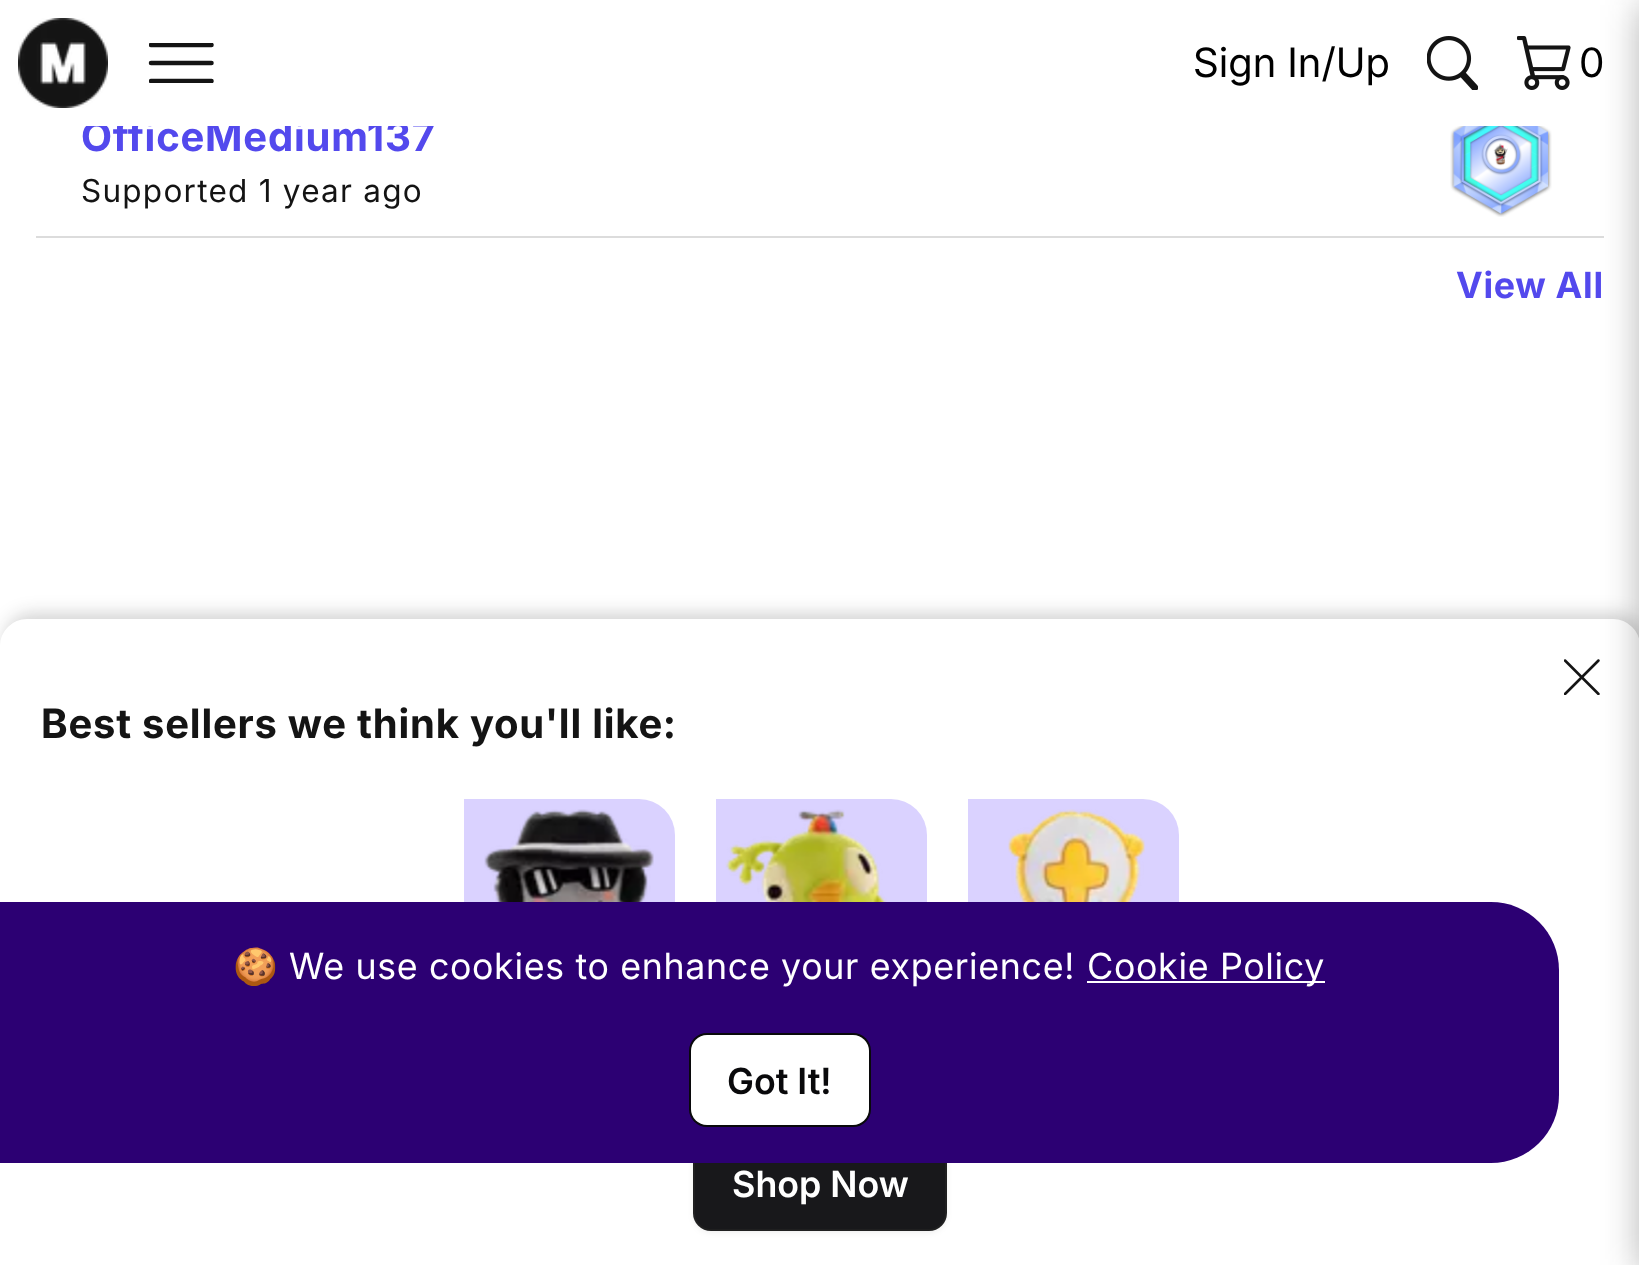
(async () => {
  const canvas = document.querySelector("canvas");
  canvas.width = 1639;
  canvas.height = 1265;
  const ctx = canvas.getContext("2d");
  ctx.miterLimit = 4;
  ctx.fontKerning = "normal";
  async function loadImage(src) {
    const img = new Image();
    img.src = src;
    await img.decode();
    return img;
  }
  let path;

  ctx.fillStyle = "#ffffff";
  ctx.fillRect(0, 0, 1639, 1265);
  ctx.drawImage(await loadImage("img/1.png"), 18, 18, 90, 90);
  ctx.save();
  ctx.beginPath();
  ctx.rect(149, 43, 72, 40);
  ctx.clip();
  path = new Path2D("M151 45H211.5");
  ctx.strokeStyle = "#141414";
  ctx.lineWidth = 4.5;
  ctx.lineCap = "round";
  ctx.stroke(path);
  ctx.restore();
  path = new Path2D("M151 63H211.5");
  ctx.strokeStyle = "#141414";
  ctx.lineWidth = 4.5;
  ctx.lineCap = "round";
  ctx.stroke(path);
  ctx.save();
  ctx.beginPath();
  ctx.rect(149, 43, 72, 40);
  ctx.clip();
  path = new Path2D("M151 81H211.5");
  ctx.stroke(path);
  ctx.restore();
  ctx.drawImage(await loadImage("img/2.png"), 1427, 36, 51, 54);
  ctx.drawImage(await loadImage("img/3.png"), 1517, 36, 54, 54);
  ctx.fillStyle = "#dcdcdc";
  ctx.fillRect(36, 236, 1568, 2);
  ctx.fillStyle = "rgba(20, 20, 20, 0.2)";
  ctx.filter = "blur(9px)";
  ctx.beginPath();
  ctx.roundRect(5, 614, 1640, 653, 27);
  ctx.fill();
  ctx.filter = "none";
  ctx.fillStyle = "#ffffff";
  path = new Path2D("M27 621.5H1613C1626.5 621.5 1637.5 632.5 1637.5 646V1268.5H2.5V646C2.5 632.5 13.5 621.5 27 621.5Z");
  ctx.fill(path);
  ctx.strokeStyle = "#ffffff";
  ctx.lineWidth = 5;
  ctx.stroke(path);
  ctx.drawImage(await loadImage("img/5.png"), 1564, 659, 36, 36);
  ctx.fillStyle = "rgba(20, 20, 20, 0.33)";
  ctx.filter = "blur(18px)";
  ctx.beginPath();
  ctx.rect(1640, 5, 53, 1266);
  ctx.fill();
  ctx.filter = "none";
  ctx.drawImage(await loadImage("img/4.png"), 1450, 126, 102, 91);
  ctx.fillStyle = "#dad2ff";
  ctx.beginPath();
  ctx.roundRect(464, 799, 211, 211, [0, 36, 0, 36]);
  ctx.fill();
  ctx.drawImage(await loadImage("img/6.png"), 484, 809, 170, 93);
  ctx.beginPath();
  ctx.roundRect(716, 799, 211, 211, [0, 36, 0, 36]);
  ctx.fill();
  ctx.drawImage(await loadImage("img/7.png"), 725, 809, 162, 93);
  ctx.beginPath();
  ctx.roundRect(968, 799, 211, 211, [0, 36, 0, 36]);
  ctx.fill();
  ctx.drawImage(await loadImage("img/8.png"), 1007, 809, 139, 93);
  ctx.fillStyle = "#222223";
  ctx.beginPath();
  ctx.roundRect(693, 1136, 254, 95, 18);
  ctx.fill();
  ctx.fillStyle = "rgba(0, 0, 0, 0.1)";
  ctx.filter = "blur(3.5px)";
  ctx.beginPath();
  ctx.roundRect(695, 1141, 250, 90, 16);
  ctx.fill();
  ctx.filter = "none";
  ctx.fillStyle = "#18181b";
  ctx.beginPath();
  ctx.roundRect(695, 1139, 250, 90, 16);
  ctx.fill();
  ctx.fillStyle = "#2c0073";
  ctx.beginPath();
  ctx.roundRect(0, 902, 1559, 261, [0, 68, 68, 0]);
  ctx.fill();
  ctx.fillStyle = "#ffffff";
  ctx.fillRect(1087, 981, 238, 2);
  ctx.fillStyle = "#09090b";
  ctx.beginPath();
  ctx.roundRect(689, 1033, 182, 94, 18);
  ctx.fill();
  ctx.fillStyle = "#ffffff";
  ctx.beginPath();
  ctx.roundRect(691, 1035, 178, 90, 16);
  ctx.fill();
  ctx.font = "40.5px 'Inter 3'";
  ctx.fillStyle = "#000000";
  ctx.fillText("Sign In/Up", 1193, 77);
  ctx.fillText("0", 1579, 77);
  ctx.letterSpacing = "0.8px";
  ctx.font = "bold 40.5px Inter";
  ctx.fillStyle = "#5349ed";
  ctx.fillText("OfficeMedium137", 81, 151);
  ctx.fillStyle = "#ffffff";
  ctx.fillRect(86, 120, 348, 6);
  ctx.letterSpacing = "1.25px";
  ctx.font = "31.5px Inter";
  ctx.fillStyle = "#141414";
  ctx.fillText("Supported 1 year ago", 81, 202);
  ctx.letterSpacing = "0.7px";
  ctx.font = "bold 36px 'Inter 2'";
  ctx.fillStyle = "#5349ed";
  ctx.fillText("View All", 1456, 298);
  ctx.letterSpacing = "0.8px";
  ctx.font = "bold 40.5px Inter";
  ctx.fillStyle = "#141414";
  ctx.fillText("Best sellers we think you'll like:", 41, 738);
  ctx.letterSpacing = "0px";
  ctx.font = "600 36px Inter";
  ctx.fillStyle = "#ffffff";
  ctx.fillText("Shop Now", 732, 1197);
  ctx.letterSpacing = "0.7px";
  ctx.font = "36px Noto Color Emoji";
  ctx.fillText("🍪", 233, 979);
  ctx.font = "36px 'Inter 2'";
  ctx.fillText("We use cookies to enhance your experience!", 289, 979);
  ctx.fillText("Cookie Policy", 1087, 979);
  ctx.letterSpacing = "0px";
  ctx.font = "600 36px Inter";
  ctx.fillStyle = "#09090b";
  ctx.fillText("Got It!", 727, 1094);
})();
